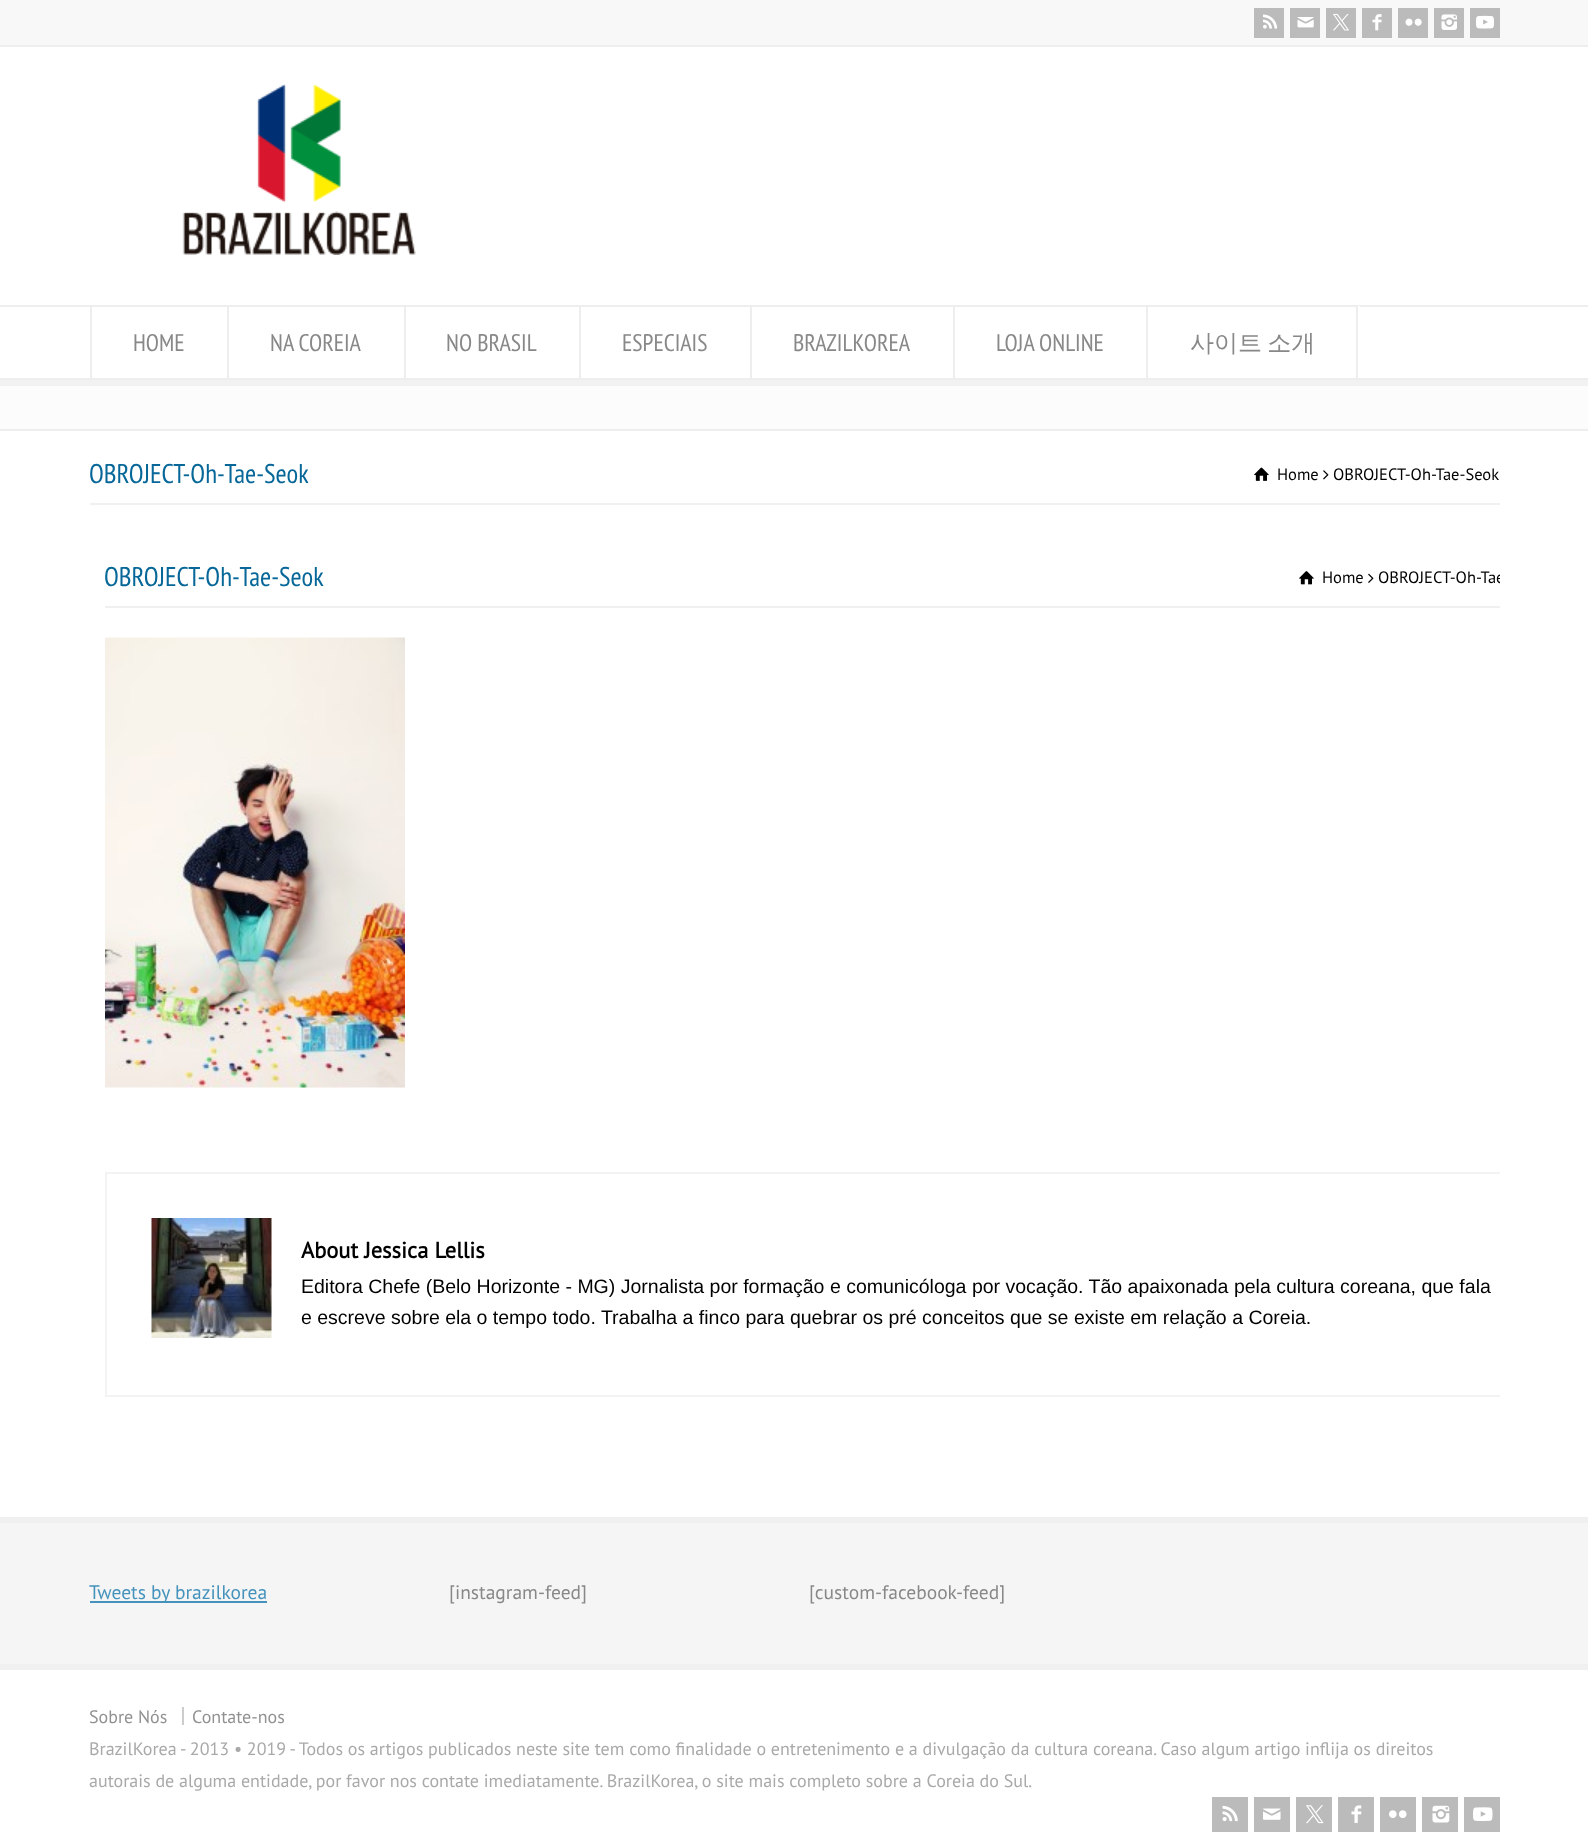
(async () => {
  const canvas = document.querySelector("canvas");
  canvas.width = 1588;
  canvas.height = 1832;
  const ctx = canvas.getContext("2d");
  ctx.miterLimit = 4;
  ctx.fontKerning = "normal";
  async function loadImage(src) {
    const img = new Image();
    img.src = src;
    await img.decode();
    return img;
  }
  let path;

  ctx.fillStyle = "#ffffff";
  ctx.fillRect(0, 0, 1588, 1832);
  for (const [x, y, w, h, color] of [
    [0, 0, 1588, 45, "#f8f8f8"],
    [0, 45, 1588, 2, "#eeeeee"],
    [1254, 8, 30, 30, "#bbbbbb"],
  ]) {
    ctx.fillStyle = color;
    ctx.fillRect(x, y, w, h);
  }
  ctx.drawImage(await loadImage("img/1.png"), 1263, 14, 15, 15);
  ctx.fillRect(1290, 8, 30, 30);
  ctx.drawImage(await loadImage("img/2.png"), 1297, 17, 17, 11);
  ctx.fillRect(1326, 8, 30, 30);
  ctx.drawImage(await loadImage("img/3.png"), 1333, 13, 16, 18);
  ctx.fillRect(1362, 8, 30, 30);
  ctx.drawImage(await loadImage("img/4.png"), 1372, 14, 10, 17);
  ctx.fillRect(1398, 8, 30, 30);
  ctx.drawImage(await loadImage("img/5.png"), 1405, 18, 17, 8);
  ctx.fillRect(1434, 8, 30, 30);
  ctx.drawImage(await loadImage("img/6.png"), 1441, 14, 16, 16);
  ctx.fillRect(1470, 8, 30, 30);
  ctx.drawImage(await loadImage("img/7.png"), 1476, 15, 18, 14);
  ctx.drawImage(await loadImage("img/8.png"), 182, 84, 234, 171);
  ctx.fillStyle = "#f2f2f2";
  path = new Path2D("M0 380V386H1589V311H1588V380Z");
  ctx.fill(path);
  for (const [x, y, w, h, color] of [
    [0, 305, 1588, 2, "#eeeeee"],
    [0, 378, 1588, 2, "#eeeeee"],
    [1358, 306, 2, 1, "#ffffff"],
    [227, 306, 2, 72, "#eeeeee"],
    [90, 306, 2, 72, "#eeeeee"],
    [404, 306, 2, 72, "#eeeeee"],
    [579, 306, 2, 72, "#eeeeee"],
    [750, 306, 2, 72, "#eeeeee"],
    [953, 306, 2, 72, "#eeeeee"],
    [1146, 306, 2, 72, "#eeeeee"],
    [1356, 306, 2, 72, "#eeeeee"],
    [0, 386, 1588, 43, "#fcfcfc"],
    [0, 429, 1588, 2, "#eeeeee"],
    [90, 503, 1410, 2, "#f0f0f0"],
  ]) {
    ctx.fillStyle = color;
    ctx.fillRect(x, y, w, h);
  }
  ctx.drawImage(await loadImage("img/9.png"), 1254, 467, 15, 14);
  ctx.drawImage(await loadImage("img/10.png"), 1323, 470, 6, 10);
  ctx.fillRect(105, 606, 1395, 2);
  ctx.drawImage(await loadImage("img/11.png"), 1299, 571, 15, 14);
  ctx.drawImage(await loadImage("img/12.png"), 1368, 573, 6, 10);
  ctx.drawImage(await loadImage("img/13.png"), 105, 637, 300, 451);
  ctx.save();
  ctx.beginPath();
  ctx.rect(90, 534, 1410, 953);
  ctx.clip();
  ctx.strokeStyle = "#f3f3f3";
  ctx.lineWidth = 2;
  ctx.strokeRect(106, 1173, 1438, 223);
  ctx.restore();
  ctx.drawImage(await loadImage("img/14.png"), 151, 1218, 121, 120);
  for (const [x, y, w, h, color] of [
    [0, 1523, 1588, 141, "#f5f5f5"],
    [0, 1517, 1588, 6, "#f0f0f0"],
    [90, 1601, 177, 2, "#4593bc"],
    [0, 1664, 1588, 6, "#f0f0f0"],
    [182, 1707, 2, 18, "#cdcdcd"],
    [1212, 1797, 36, 35, "#bbbbbb"],
  ]) {
    ctx.fillStyle = color;
    ctx.fillRect(x, y, w, h);
  }
  ctx.drawImage(await loadImage("img/15.png"), 1222, 1805, 16, 17);
  ctx.fillRect(1254, 1797, 36, 35);
  ctx.drawImage(await loadImage("img/16.png"), 1263, 1808, 18, 12);
  ctx.fillRect(1296, 1797, 36, 35);
  ctx.drawImage(await loadImage("img/17.png"), 1306, 1805, 18, 19);
  ctx.fillRect(1338, 1797, 36, 35);
  ctx.drawImage(await loadImage("img/18.png"), 1351, 1805, 11, 18);
  ctx.fillRect(1380, 1797, 36, 35);
  ctx.drawImage(await loadImage("img/19.png"), 1389, 1810, 18, 8);
  ctx.fillRect(1422, 1797, 36, 35);
  ctx.drawImage(await loadImage("img/20.png"), 1432, 1805, 18, 18);
  ctx.fillRect(1464, 1797, 36, 35);
  ctx.drawImage(await loadImage("img/21.png"), 1473, 1807, 20, 14);
  ctx.font = "24px PT Sans Narrow";
  ctx.fillStyle = "#888888";
  for (const [text, x, y] of [
    ["HOME", 133, 351],
    ["NA COREIA", 270, 351],
    ["NO BRASIL", 446, 351],
    ["ESPECIAIS", 622, 351],
    ["BRAZILKOREA", 793, 351],
    ["LOJA ONLINE", 996, 351],
  ]) {
    ctx.fillText(text, x, y);
  }
  ctx.wordSpacing = "-2px";
  ctx.font = "500 24px WenQuanYi Zen Hei";
  ctx.fillText("사이트 소개", 1190, 351);
  ctx.wordSpacing = "0px";
  ctx.font = "27px PT Sans Narrow";
  ctx.fillStyle = "#066798";
  ctx.fillText("OBROJECT-Oh-Tae-Seok", 89, 483);
  ctx.font = "16.5px PT Sans";
  ctx.fillStyle = "#000000";
  ctx.fillText("Home", 1277, 480);
  ctx.fillText("OBROJECT-Oh-Tae-Seok", 1333, 480);
  ctx.font = "27px PT Sans Narrow";
  ctx.fillStyle = "#066798";
  ctx.fillText("OBROJECT-Oh-Tae-Seok", 104, 586);
  ctx.font = "16.5px PT Sans";
  ctx.fillStyle = "#000000";
  ctx.fillText("Home", 1322, 583);
  ctx.save();
  ctx.beginPath();
  ctx.rect(90, 534, 1410, 953);
  ctx.clip();
  ctx.fillText("OBROJECT-Oh-Tae", 1378, 583);
  ctx.restore();
  ctx.font = "bold 22.5px PT Sans";
  ctx.fillText("About Jessica Lellis", 301, 1258);
  ctx.font = "19.5px Liberation Sans";
  ctx.fillText("Editora Chefe (Belo Horizonte - MG) Jornalista por formação e comunicóloga por vocação. Tão apaixonada pela cultura coreana, que fala", 301, 1293);
  ctx.fillText("e escreve sobre ela o tempo todo. Trabalha a finco para quebrar os pré conceitos que se existe em relação a Coreia.", 301, 1324);
  ctx.font = "19.5px PT Sans";
  ctx.fillStyle = "#4593bc";
  ctx.fillText("Tweets by brazilkorea", 89, 1599);
  ctx.fillStyle = "#888888";
  ctx.fillText("[instagram-feed]", 449, 1599);
  ctx.fillText("[custom-facebook-feed]", 809, 1599);
  ctx.font = "18px PT Sans";
  ctx.fillStyle = "#919191";
  ctx.fillText("Sobre Nós", 89, 1723);
  ctx.fillText("Contate-nos", 192, 1723);
  ctx.fillStyle = "#a9a9a9";
  ctx.fillText("BrazilKorea - 2013 • 2019 - Todos os artigos publicados neste site tem como finalidade o entretenimento e a divulgação da cultura coreana. Caso algum artigo inflija os direitos", 89, 1755);
  ctx.fillText("autorais de alguma entidade, por favor nos contate imediatamente. BrazilKorea, o site mais completo sobre a Coreia do Sul.", 89, 1787);
})();
